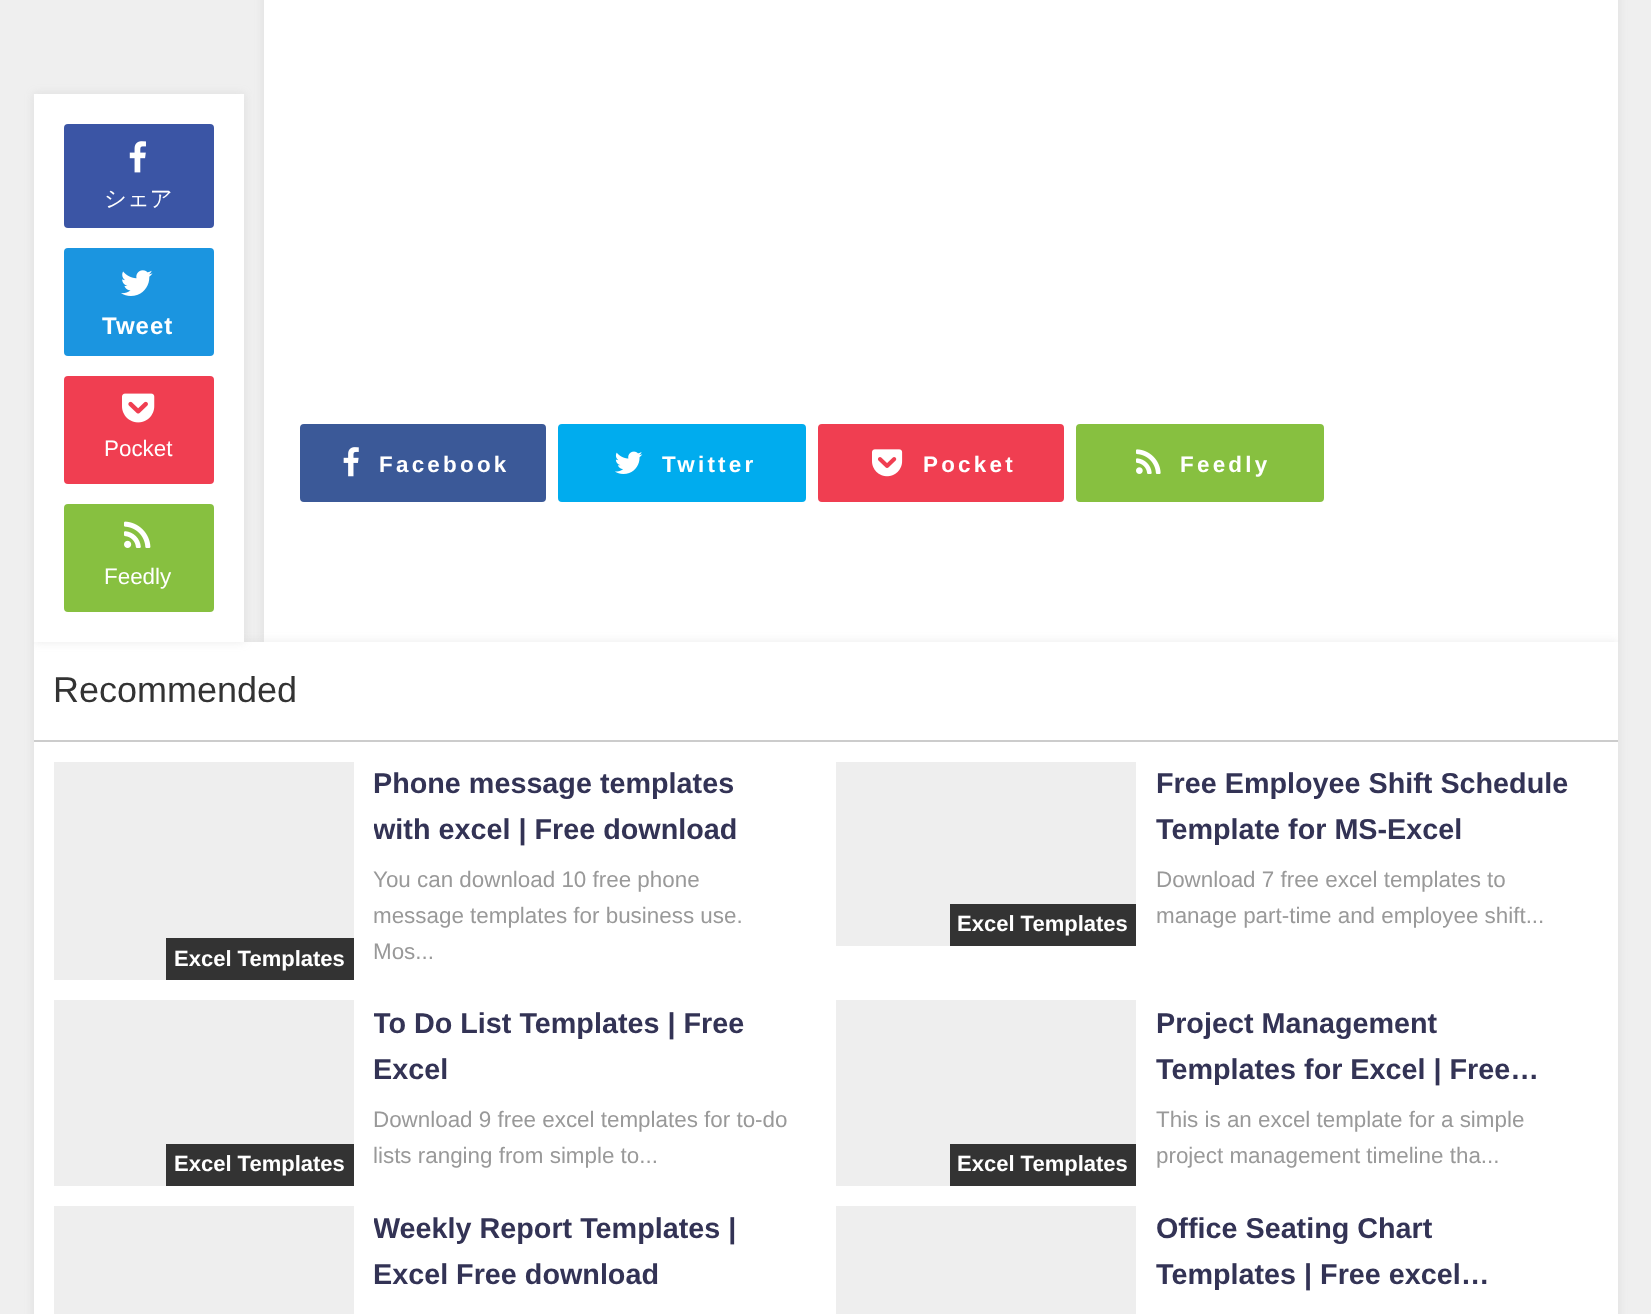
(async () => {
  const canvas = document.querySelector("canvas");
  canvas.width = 1651;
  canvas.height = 1314;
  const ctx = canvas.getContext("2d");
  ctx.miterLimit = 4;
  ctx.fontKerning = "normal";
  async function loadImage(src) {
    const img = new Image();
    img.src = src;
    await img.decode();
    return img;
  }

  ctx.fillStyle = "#efefef";
  ctx.fillRect(0, 0, 1651, 1314);
  ctx.fillStyle = "rgba(150, 150, 150, 0.2)";
  ctx.filter = "blur(5px)";
  ctx.beginPath();
  ctx.rect(264, -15, 1354, 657);
  ctx.fill();
  ctx.filter = "none";
  ctx.fillStyle = "#ffffff";
  ctx.fillRect(264, 0, 1354, 642);
  ctx.fillStyle = "rgba(150, 150, 150, 0.2)";
  ctx.filter = "blur(5px)";
  ctx.beginPath();
  ctx.rect(34, 642, 1584, 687);
  ctx.fill();
  ctx.filter = "none";
  ctx.fillStyle = "#ffffff";
  ctx.fillRect(34, 642, 1584, 672);
  ctx.fillStyle = "rgba(150, 150, 150, 0.2)";
  ctx.filter = "blur(5px)";
  ctx.beginPath();
  ctx.rect(34, 94, 210, 548);
  ctx.fill();
  ctx.filter = "none";
  ctx.fillStyle = "#ffffff";
  ctx.fillRect(34, 94, 210, 548);
  ctx.fillStyle = "#3b55a5";
  ctx.beginPath();
  ctx.roundRect(64, 124, 150, 104, 4);
  ctx.fill();
  ctx.drawImage(await loadImage("img/1.png"), 129, 141, 17, 32);
  ctx.fillStyle = "#1b95e0";
  ctx.beginPath();
  ctx.roundRect(64, 248, 150, 108, 4);
  ctx.fill();
  ctx.drawImage(await loadImage("img/2.png"), 121, 270, 32, 26);
  ctx.fillStyle = "#f03e51";
  ctx.beginPath();
  ctx.roundRect(64, 376, 150, 108, 4);
  ctx.fill();
  ctx.drawImage(await loadImage("img/3.png"), 122, 393, 33, 30);
  ctx.fillStyle = "#87c040";
  ctx.beginPath();
  ctx.roundRect(64, 504, 150, 108, 4);
  ctx.fill();
  ctx.drawImage(await loadImage("img/4.png"), 124, 521, 27, 27);
  ctx.fillStyle = "#3b5998";
  ctx.beginPath();
  ctx.roundRect(302, 426, 242, 74, 2);
  ctx.fill();
  ctx.strokeStyle = "#3b5998";
  ctx.lineWidth = 4;
  ctx.stroke();
  ctx.drawImage(await loadImage("img/5.png"), 343, 447, 16, 30);
  ctx.fillStyle = "#00acee";
  ctx.beginPath();
  ctx.roundRect(560, 426, 244, 74, 2);
  ctx.fill();
  ctx.strokeStyle = "#00acee";
  ctx.stroke();
  ctx.drawImage(await loadImage("img/6.png"), 615, 451, 28, 23);
  ctx.fillStyle = "#f03e51";
  ctx.beginPath();
  ctx.roundRect(820, 426, 242, 74, 2);
  ctx.fill();
  ctx.strokeStyle = "#f03e51";
  ctx.stroke();
  ctx.drawImage(await loadImage("img/7.png"), 872, 449, 31, 28);
  ctx.fillStyle = "#87c040";
  ctx.beginPath();
  ctx.roundRect(1078, 426, 244, 74, 2);
  ctx.fill();
  ctx.strokeStyle = "#87c040";
  ctx.stroke();
  ctx.drawImage(await loadImage("img/8.png"), 1136, 449, 25, 25);
  for (const [x, y, w, h, color] of [
    [34, 740, 1584, 2, "#cccccc"],
    [54, 762, 300, 218, "#eeeeee"],
    [166, 938, 188, 42, "#333333"],
    [836, 762, 300, 184, "#eeeeee"],
    [950, 904, 186, 42, "#333333"],
    [54, 1000, 300, 186, "#eeeeee"],
    [166, 1144, 188, 42, "#333333"],
    [836, 1000, 300, 186, "#eeeeee"],
    [950, 1144, 186, 42, "#333333"],
    [54, 1206, 300, 108, "#eeeeee"],
    [836, 1206, 300, 108, "#eeeeee"],
  ]) {
    ctx.fillStyle = color;
    ctx.fillRect(x, y, w, h);
  }
  ctx.font = "500 22.4px WenQuanYi Zen Hei";
  ctx.fillStyle = "#ffffff";
  ctx.fillText("シェア", 104, 206);
  ctx.letterSpacing = "1px";
  ctx.font = "bold 24px Liberation Sans";
  ctx.fillText("Tweet", 102, 334);
  ctx.letterSpacing = "0px";
  ctx.font = "22.4px Liberation Sans";
  ctx.fillText("Pocket", 104, 456);
  ctx.fillText("Feedly", 104, 584);
  ctx.letterSpacing = "3.25px";
  ctx.font = "bold 22.4px Liberation Sans";
  for (const [text, x, y] of [
    ["Facebook", 379, 472],
    ["Twitter", 662, 472],
    ["Pocket", 923, 472],
    ["Feedly", 1180, 472],
  ]) {
    ctx.fillText(text, x, y);
  }
  ctx.letterSpacing = "0px";
  ctx.font = "36px Liberation Sans";
  ctx.fillStyle = "#333333";
  ctx.fillText("Recommended", 53, 702);
  ctx.font = "bold 22px Liberation Sans";
  ctx.fillStyle = "#ffffff";
  ctx.fillText("Excel Templates", 174, 966);
  ctx.font = "bold 28.75px Liberation Sans";
  ctx.fillStyle = "#333355";
  ctx.fillText("Phone message templates", 373, 793);
  ctx.save();
  ctx.beginPath();
  ctx.rect(374, 762, 422, 92);
  ctx.clip();
  ctx.fillText("with excel | Free download", 373, 839);
  ctx.restore();
  ctx.font = "22.4px Liberation Sans";
  ctx.fillStyle = "#999999";
  for (const [text, x, y] of [
    ["You can download 10 free phone", 373, 887],
    ["message templates for business use.", 373, 923],
    ["Mos...", 373, 959],
  ]) {
    ctx.fillText(text, x, y);
  }
  ctx.font = "bold 22px Liberation Sans";
  ctx.fillStyle = "#ffffff";
  ctx.fillText("Excel Templates", 957, 931);
  ctx.font = "bold 28.75px Liberation Sans";
  ctx.fillStyle = "#333355";
  ctx.fillText("Free Employee Shift Schedule", 1156, 793);
  ctx.fillText("Template for MS-Excel", 1156, 839);
  ctx.font = "22.4px Liberation Sans";
  ctx.fillStyle = "#999999";
  ctx.fillText("Download 7 free excel templates to", 1156, 887);
  ctx.fillText("manage part-time and employee shift...", 1156, 923);
  ctx.font = "bold 22px Liberation Sans";
  ctx.fillStyle = "#ffffff";
  ctx.fillText("Excel Templates", 174, 1171);
  ctx.save();
  ctx.beginPath();
  ctx.rect(374, 1000, 422, 94);
  ctx.clip();
  ctx.font = "bold 28.75px Liberation Sans";
  ctx.fillStyle = "#333355";
  ctx.fillText("To Do List Templates | Free", 373, 1033);
  ctx.restore();
  ctx.font = "bold 28.75px Liberation Sans";
  ctx.fillStyle = "#333355";
  ctx.fillText("Excel", 373, 1079);
  ctx.font = "22.4px Liberation Sans";
  ctx.fillStyle = "#999999";
  ctx.fillText("Download 9 free excel templates for to-do", 373, 1127);
  ctx.fillText("lists ranging from simple to...", 373, 1163);
  ctx.font = "bold 22px Liberation Sans";
  ctx.fillStyle = "#ffffff";
  ctx.fillText("Excel Templates", 957, 1171);
  ctx.font = "bold 28.75px Liberation Sans";
  ctx.fillStyle = "#333355";
  ctx.fillText("Project Management", 1156, 1033);
  ctx.fillText("Templates for Excel | Free…", 1156, 1079);
  ctx.font = "22.4px Liberation Sans";
  ctx.fillStyle = "#999999";
  ctx.fillText("This is an excel template for a simple", 1156, 1127);
  ctx.fillText("project management timeline tha...", 1156, 1163);
  ctx.save();
  ctx.beginPath();
  ctx.rect(374, 1206, 422, 92);
  ctx.clip();
  ctx.font = "bold 28.75px Liberation Sans";
  ctx.fillStyle = "#333355";
  ctx.fillText("Weekly Report Templates |", 373, 1238);
  ctx.restore();
  ctx.font = "bold 28.75px Liberation Sans";
  ctx.fillStyle = "#333355";
  for (const [text, x, y] of [
    ["Excel Free download", 373, 1284],
    ["Office Seating Chart", 1156, 1238],
    ["Templates | Free excel…", 1156, 1284],
  ]) {
    ctx.fillText(text, x, y);
  }
})();
